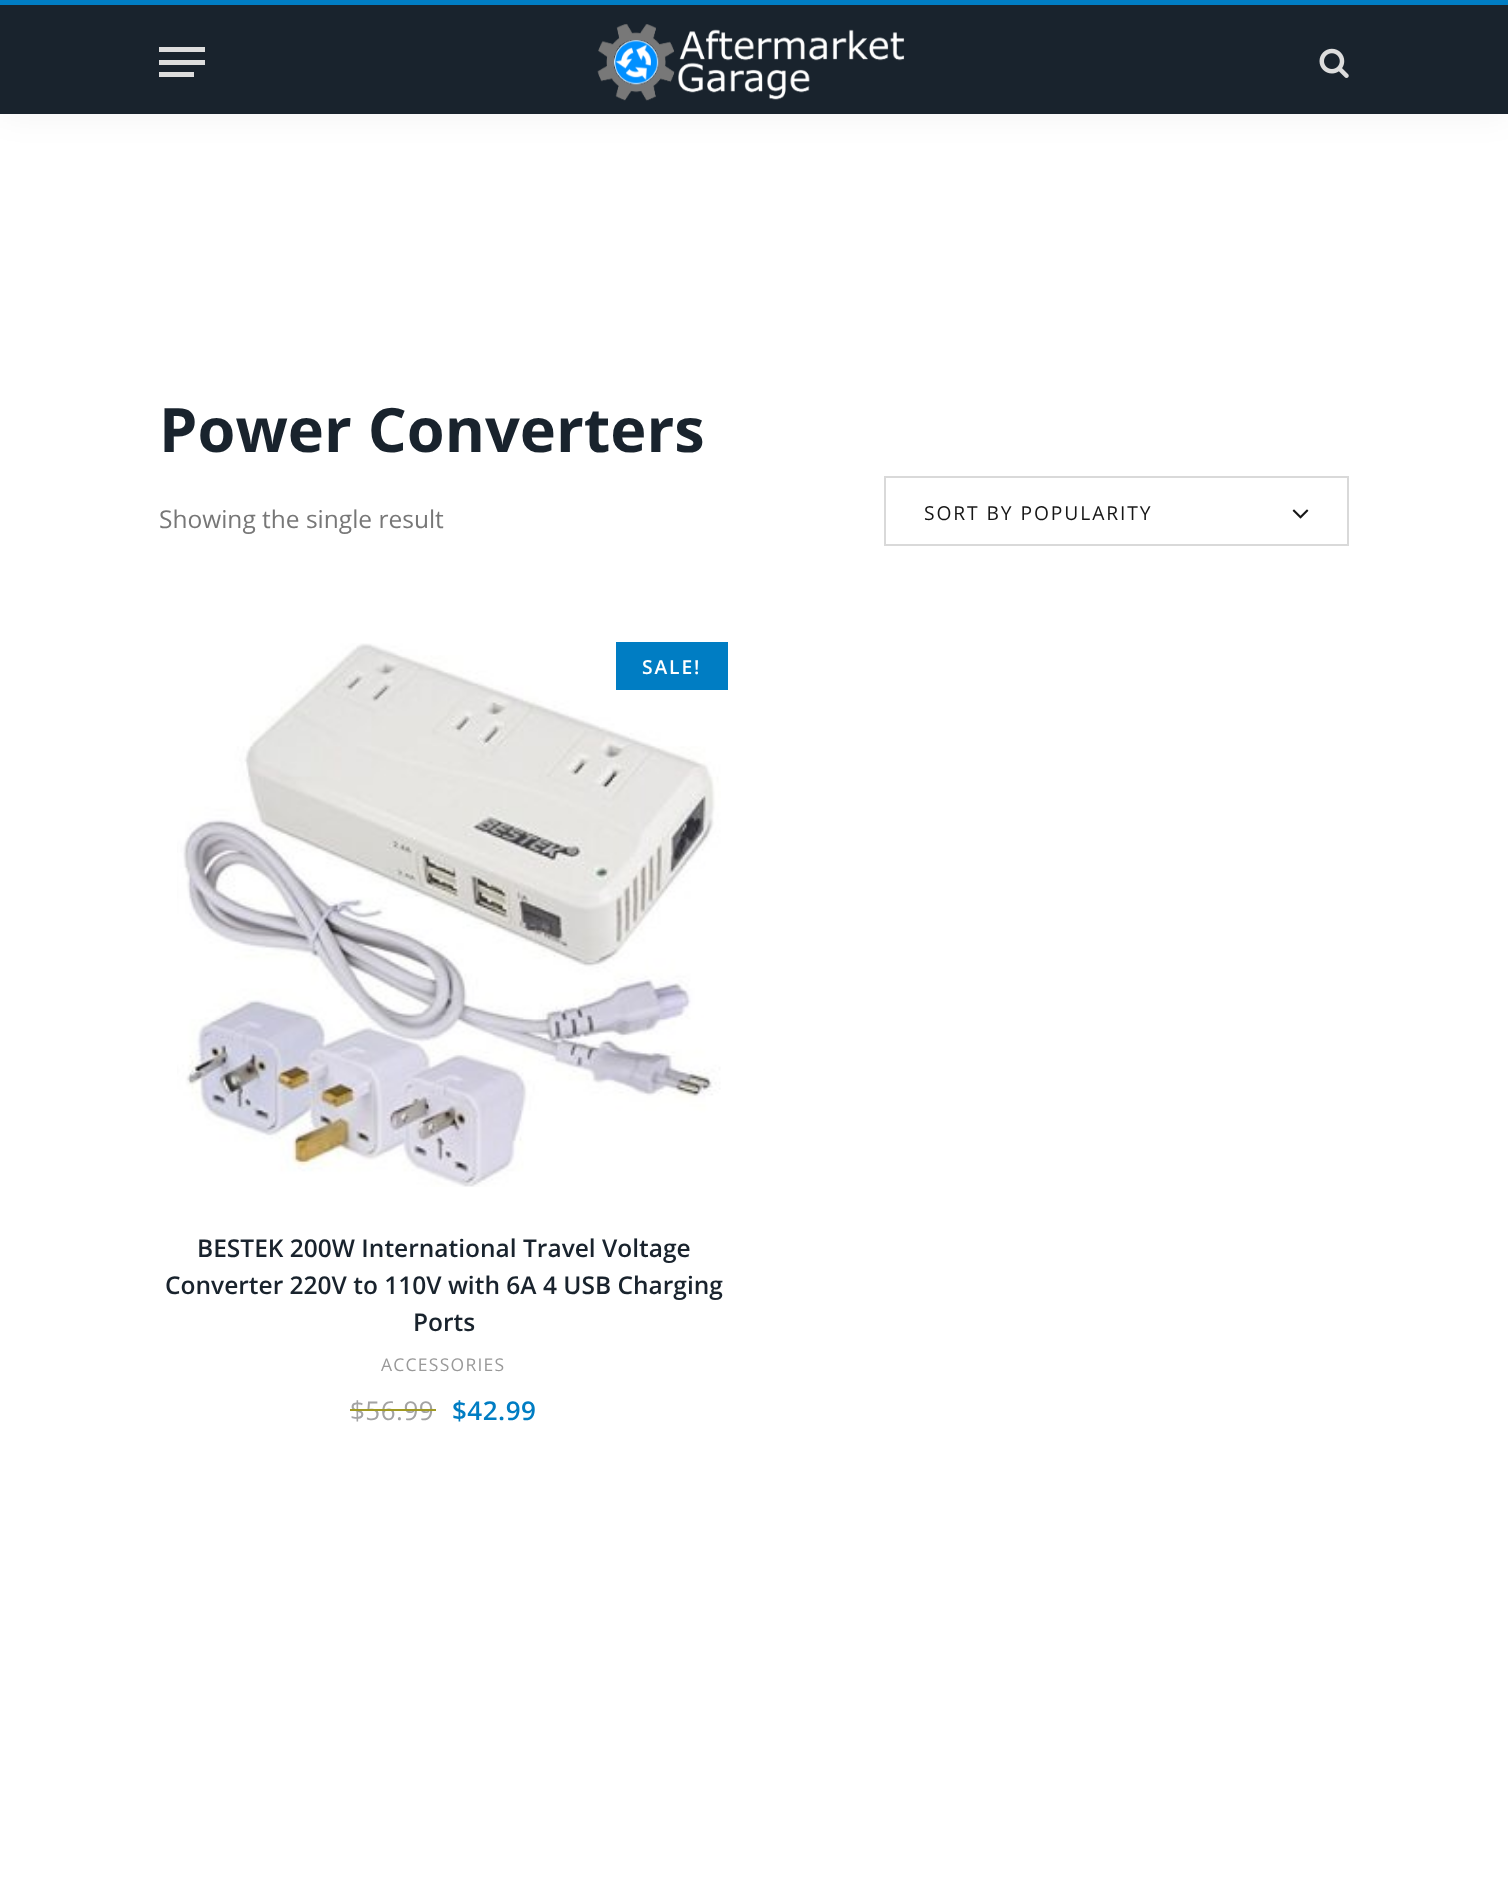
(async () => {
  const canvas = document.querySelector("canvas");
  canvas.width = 1508;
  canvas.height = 1886;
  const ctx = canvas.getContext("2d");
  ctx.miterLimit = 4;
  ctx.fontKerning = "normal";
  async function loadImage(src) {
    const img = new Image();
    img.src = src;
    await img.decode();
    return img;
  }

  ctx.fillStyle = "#ffffff";
  ctx.fillRect(0, 0, 1508, 1886);
  ctx.fillStyle = "rgba(0, 0, 0, 0.05)";
  ctx.filter = "blur(17.5px)";
  ctx.beginPath();
  ctx.rect(0, 0, 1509, 114);
  ctx.fill();
  ctx.filter = "none";
  for (const [x, y, w, h, color] of [
    [0, 5, 1508, 109, "#19232d"],
    [0, 0, 1508, 5, "#007dc3"],
    [159, 72, 35, 5, "#dddddd"],
    [159, 47, 46, 5, "#dddddd"],
    [159, 60, 46, 5, "#dddddd"],
  ]) {
    ctx.fillStyle = color;
    ctx.fillRect(x, y, w, h);
  }
  ctx.drawImage(await loadImage("img/1.png"), 597, 23, 308, 78);
  ctx.drawImage(await loadImage("img/2.png"), 1319, 48, 30, 30);
  ctx.strokeStyle = "#d9d9d9";
  ctx.lineWidth = 2;
  ctx.strokeRect(885, 477, 463, 68);
  ctx.drawImage(await loadImage("img/3.png"), 1292, 509, 17, 10);
  ctx.drawImage(await loadImage("img/4.png"), 177, 643, 544, 544);
  ctx.fillStyle = "#007dc3";
  ctx.fillRect(616, 642, 112, 48);
  ctx.font = "bold 61.25px Open Sans";
  ctx.fillStyle = "#19232d";
  ctx.fillText("Power Converters", 159, 452);
  ctx.font = "24.5px Open Sans";
  ctx.fillStyle = "#777777";
  ctx.fillText("Showing the single result", 159, 528);
  ctx.letterSpacing = "1.9px";
  ctx.font = "19.25px Open Sans";
  ctx.fillStyle = "#161616";
  ctx.fillText("SORT BY POPULARITY", 924, 520);
  ctx.font = "600 19.25px Open Sans";
  ctx.fillStyle = "#ffffff";
  ctx.fillText("SALE!", 642, 674);
  ctx.letterSpacing = "0px";
  ctx.font = "600 24.5px Open Sans";
  ctx.fillStyle = "#19232d";
  for (const [text, x, y] of [
    ["BESTEK 200W International Travel Voltage", 197, 1257],
    ["Converter 220V to 110V with 6A 4 USB Charging", 165, 1294],
    ["Ports", 413, 1331],
  ]) {
    ctx.fillText(text, x, y);
  }
  ctx.letterSpacing = "1.25px";
  ctx.font = "17.5px Open Sans";
  ctx.fillStyle = "#999999";
  ctx.fillText("ACCESSORIES", 381, 1371);
  ctx.letterSpacing = "0.5px";
  ctx.font = "26px Open Sans";
  ctx.fillStyle = "#a3a3a3";
  ctx.fillText("$56.99", 350, 1420);
  ctx.fillStyle = "#a09922";
  ctx.fillRect(350, 1409, 86, 2);
  ctx.font = "600 26px Open Sans";
  ctx.fillStyle = "#007dc3";
  ctx.fillText("$42.99", 452, 1420);
})();
